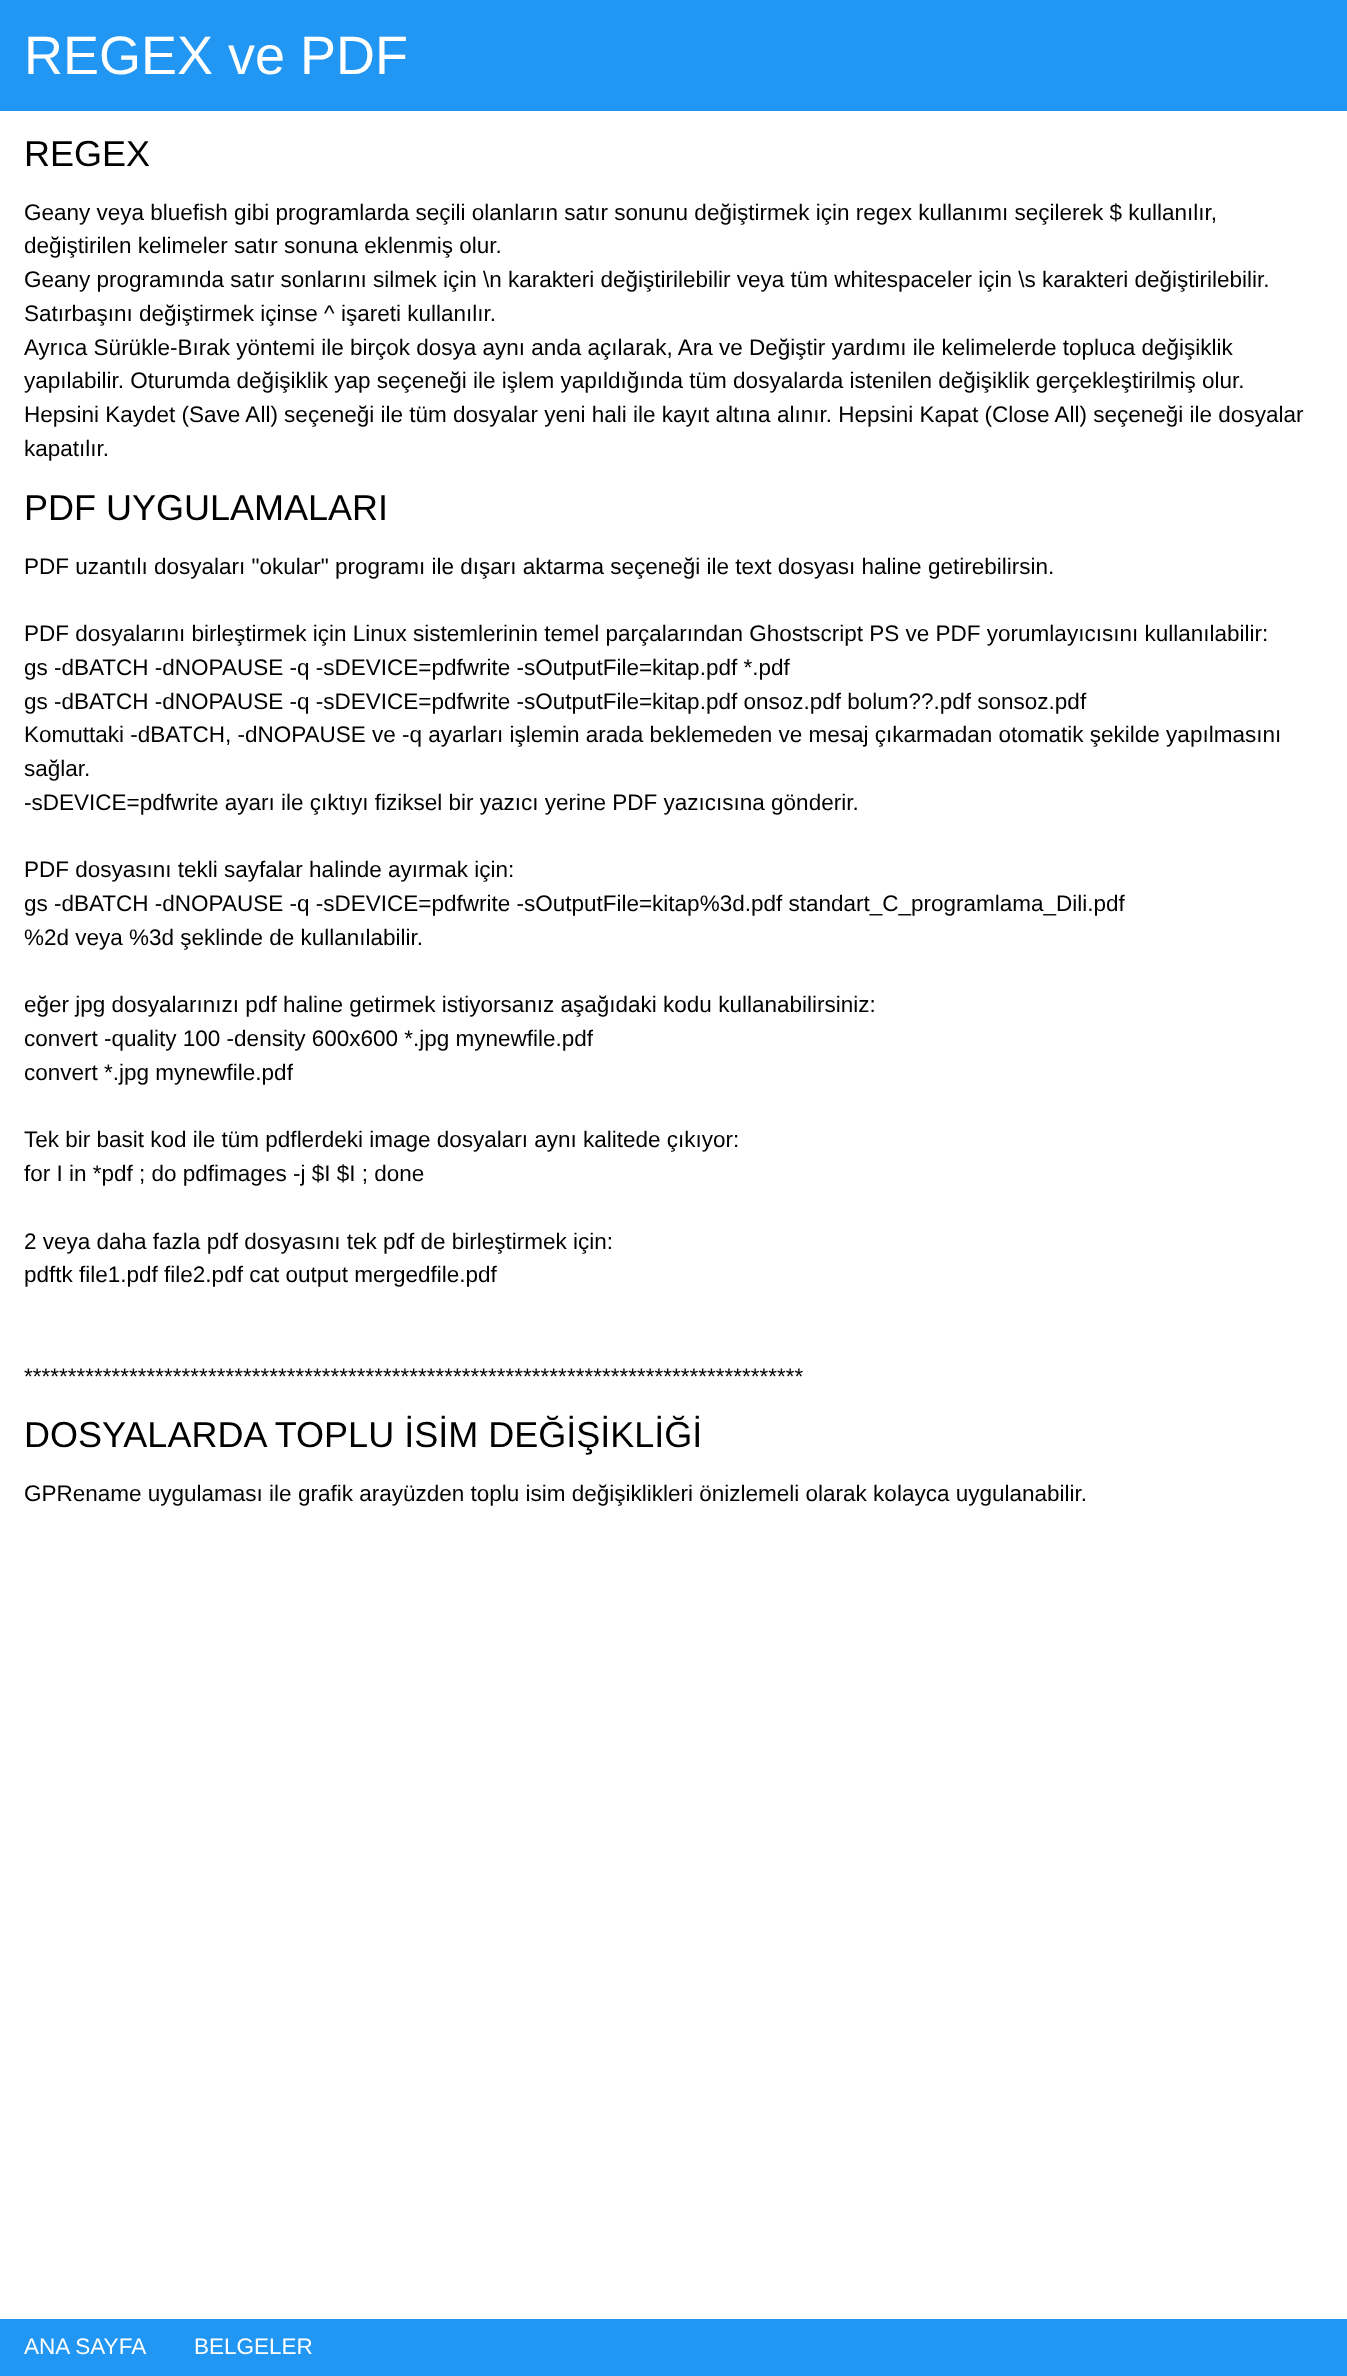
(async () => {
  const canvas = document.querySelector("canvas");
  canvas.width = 1347;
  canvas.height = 2376;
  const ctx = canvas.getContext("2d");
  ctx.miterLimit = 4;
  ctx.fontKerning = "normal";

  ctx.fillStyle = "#ffffff";
  ctx.fillRect(0, 0, 1347, 2376);
  ctx.fillStyle = "#2196f3";
  ctx.fillRect(0, 0, 1347, 111);
  ctx.fillRect(0, 2319, 1347, 57);
  ctx.font = "54px Liberation Sans";
  ctx.fillStyle = "#ffffff";
  ctx.fillText("REGEX ve PDF", 24, 74);
  ctx.font = "36px Liberation Sans";
  ctx.fillStyle = "#000000";
  ctx.fillText("REGEX", 24, 166);
  ctx.font = "22.5px Liberation Sans";
  for (const [text, x, y] of [
    ["Geany veya bluefish gibi programlarda seçili olanların satır sonunu değiştirmek için regex kullanımı seçilerek $ kullanılır,", 24, 220],
    ["değiştirilen kelimeler satır sonuna eklenmiş olur.", 24, 253],
    ["Geany programında satır sonlarını silmek için \\n karakteri değiştirilebilir veya tüm whitespaceler için \\s karakteri değiştirilebilir.", 24, 287],
    ["Satırbaşını değiştirmek içinse ^ işareti kullanılır.", 24, 321],
    ["Ayrıca Sürükle-Bırak yöntemi ile birçok dosya aynı anda açılarak, Ara ve Değiştir yardımı ile kelimelerde topluca değişiklik", 24, 355],
    ["yapılabilir. Oturumda değişiklik yap seçeneği ile işlem yapıldığında tüm dosyalarda istenilen değişiklik gerçekleştirilmiş olur.", 24, 388],
    ["Hepsini Kaydet (Save All) seçeneği ile tüm dosyalar yeni hali ile kayıt altına alınır. Hepsini Kapat (Close All) seçeneği ile dosyalar", 24, 422],
    ["kapatılır.", 24, 456],
  ]) {
    ctx.fillText(text, x, y);
  }
  ctx.font = "36px Liberation Sans";
  ctx.fillText("PDF UYGULAMALARI", 24, 520);
  ctx.font = "22.5px Liberation Sans";
  for (const [text, x, y] of [
    ["PDF uzantılı dosyaları \"okular\" programı ile dışarı aktarma seçeneği ile text dosyası haline getirebilirsin.", 24, 574],
    ["PDF dosyalarını birleştirmek için Linux sistemlerinin temel parçalarından Ghostscript PS ve PDF yorumlayıcısını kullanılabilir:", 24, 641],
    ["gs -dBATCH -dNOPAUSE -q -sDEVICE=pdfwrite -sOutputFile=kitap.pdf *.pdf", 24, 675],
    ["gs -dBATCH -dNOPAUSE -q -sDEVICE=pdfwrite -sOutputFile=kitap.pdf onsoz.pdf bolum??.pdf sonsoz.pdf", 24, 709],
    ["Komuttaki -dBATCH, -dNOPAUSE ve -q ayarları işlemin arada beklemeden ve mesaj çıkarmadan otomatik şekilde yapılmasını", 24, 742],
    ["sağlar.", 24, 776],
    ["-sDEVICE=pdfwrite ayarı ile çıktıyı fiziksel bir yazıcı yerine PDF yazıcısına gönderir.", 24, 810],
    ["PDF dosyasını tekli sayfalar halinde ayırmak için:", 24, 877],
    ["gs -dBATCH -dNOPAUSE -q -sDEVICE=pdfwrite -sOutputFile=kitap%3d.pdf standart_C_programlama_Dili.pdf", 24, 911],
    ["%2d veya %3d şeklinde de kullanılabilir.", 24, 945],
    ["eğer jpg dosyalarınızı pdf haline getirmek istiyorsanız aşağıdaki kodu kullanabilirsiniz:", 24, 1012],
    ["convert -quality 100 -density 600x600 *.jpg mynewfile.pdf", 24, 1046],
    ["convert *.jpg mynewfile.pdf", 24, 1080],
    ["Tek bir basit kod ile tüm pdflerdeki image dosyaları aynı kalitede çıkıyor:", 24, 1147],
    ["for I in *pdf ; do pdfimages -j $I $I ; done", 24, 1181],
    ["2 veya daha fazla pdf dosyasını tek pdf de birleştirmek için:", 24, 1249],
    ["pdftk file1.pdf file2.pdf cat output mergedfile.pdf", 24, 1282],
    ["*****************************************************************************************", 24, 1384],
  ]) {
    ctx.fillText(text, x, y);
  }
  ctx.font = "36px Liberation Sans";
  ctx.fillText("DOSYALARDA TOPLU İSİM DEĞİŞİKLİĞİ", 24, 1447);
  ctx.font = "22.5px Liberation Sans";
  ctx.fillText("GPRename uygulaması ile grafik arayüzden toplu isim değişiklikleri önizlemeli olarak kolayca uygulanabilir.", 24, 1501);
  ctx.fillStyle = "#ffffff";
  ctx.fillText("ANA SAYFA", 24, 2354);
  ctx.fillText("BELGELER", 194, 2354);
})();
